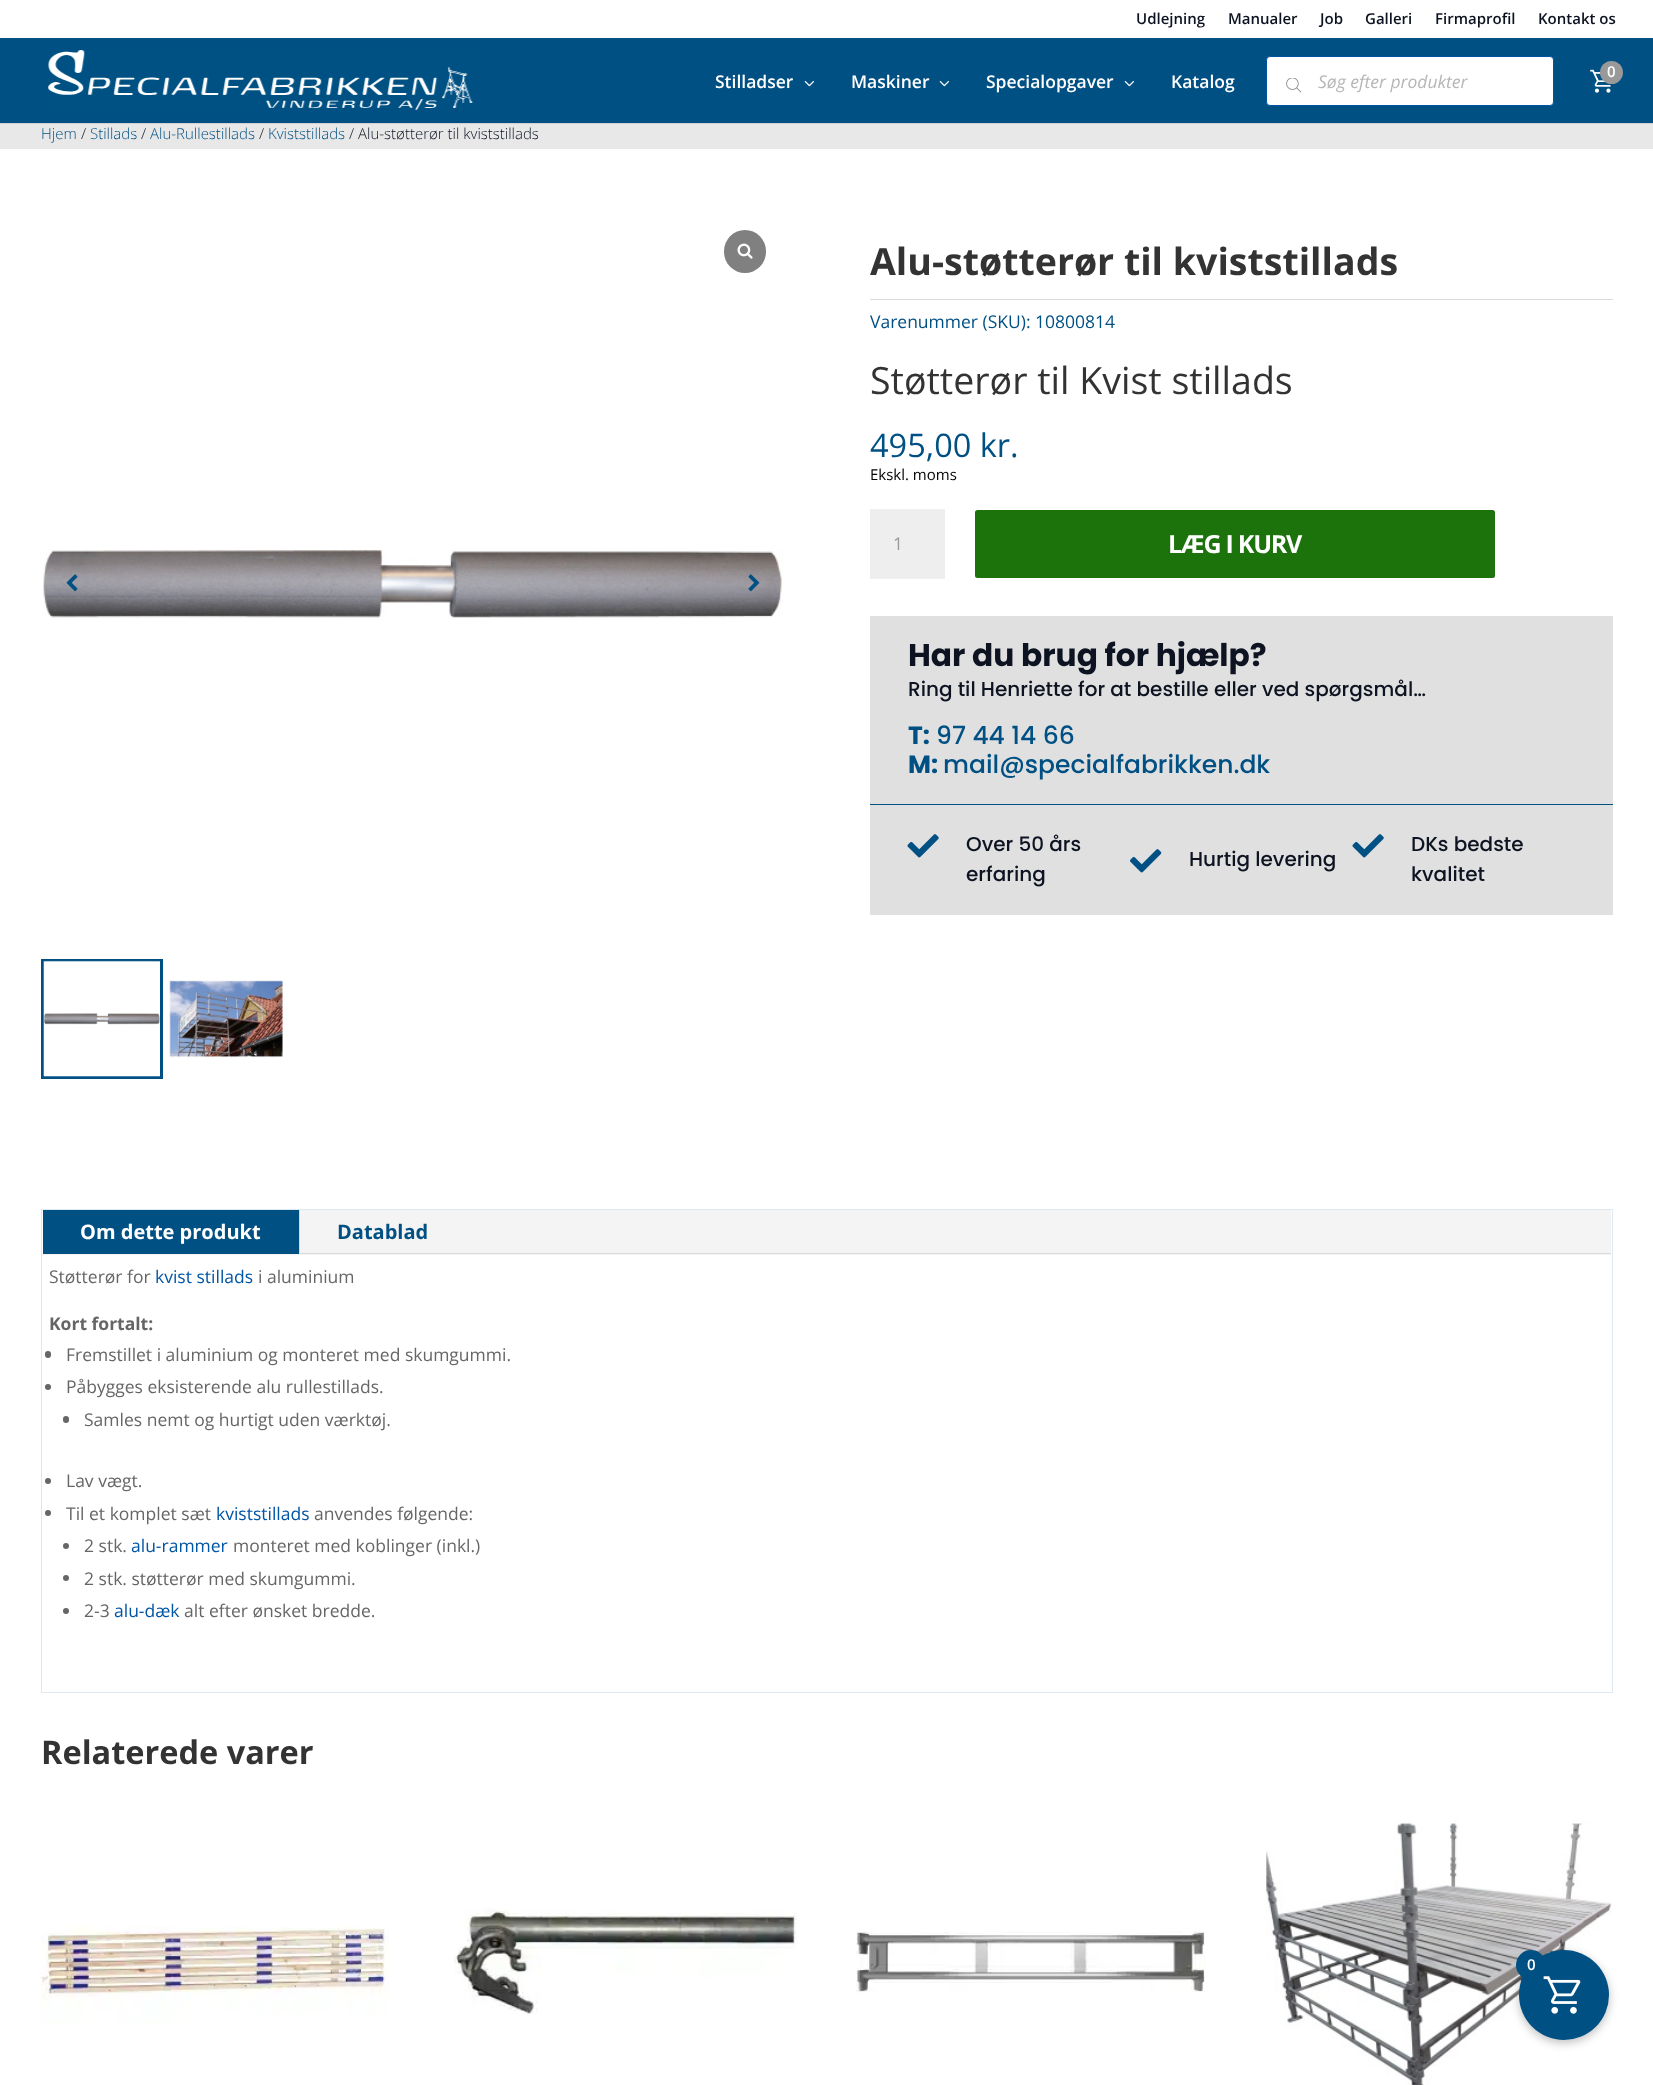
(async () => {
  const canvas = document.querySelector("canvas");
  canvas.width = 1653;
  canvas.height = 2085;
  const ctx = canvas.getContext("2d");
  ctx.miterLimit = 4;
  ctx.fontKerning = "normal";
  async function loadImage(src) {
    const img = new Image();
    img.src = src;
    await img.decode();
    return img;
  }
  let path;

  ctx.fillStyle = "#ffffff";
  ctx.fillRect(0, 0, 1653, 2085);
  ctx.fillStyle = "#d1d1d1";
  path = new Path2D("M0 122V124H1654V39V122Z");
  ctx.fill(path);
  ctx.fillStyle = "#005083";
  ctx.fillRect(0, 38, 1653, 85);
  ctx.drawImage(await loadImage("img/1.png"), 48, 50, 426, 60);
  ctx.drawImage(await loadImage("img/2.png"), 1590, 69, 21, 24);
  ctx.fillStyle = "#999999";
  ctx.beginPath();
  ctx.arc(1611.5, 72.5, 11.5, 0, Math.PI * 2);
  ctx.fill();
  ctx.drawImage(await loadImage("img/3.png"), 804, 81, 10, 6);
  ctx.drawImage(await loadImage("img/3.png"), 939, 81, 10, 6);
  ctx.drawImage(await loadImage("img/3.png"), 1124, 81, 10, 6);
  ctx.fillStyle = "#ffffff";
  ctx.beginPath();
  ctx.roundRect(1266.5, 56.5, 287, 49, 3.5);
  ctx.fill();
  ctx.strokeStyle = "#0055a5";
  ctx.stroke();
  ctx.drawImage(await loadImage("img/4.png"), 1286, 78, 16, 15);
  ctx.fillStyle = "#e8e8e8";
  ctx.fillRect(0, 124, 1653, 25);
  ctx.fillStyle = "#808080";
  ctx.beginPath();
  ctx.roundRect(724, 230, 42, 43, 21);
  ctx.fill();
  ctx.drawImage(await loadImage("img/5.png"), 737, 243, 16, 16);
  ctx.drawImage(await loadImage("img/6.png"), 43, 549, 741, 69);
  ctx.drawImage(await loadImage("img/7.png"), 66, 574, 12, 18);
  ctx.drawImage(await loadImage("img/8.png"), 748, 574, 12, 18);
  ctx.strokeStyle = "#005083";
  ctx.lineWidth = 3;
  ctx.strokeRect(42.5, 960.5, 119, 117);
  ctx.drawImage(await loadImage("img/9.png"), 43, 960, 117, 117);
  ctx.drawImage(await loadImage("img/10.png"), 169, 980, 114, 78);
  ctx.fillStyle = "#dadada";
  ctx.fillRect(870, 299, 743, 1);
  ctx.fillStyle = "#eeeeee";
  ctx.fillRect(870, 509, 75, 70);
  ctx.fillStyle = "#1c730c";
  ctx.beginPath();
  ctx.roundRect(975, 510, 520, 68, 2.5);
  ctx.fill();
  for (const [x, y, w, h, color] of [
    [870, 616, 743, 188, "#e0e0e0"],
    [870, 805, 743, 110, "#e0e0e0"],
    [870, 804, 743, 1, "#005083"],
  ]) {
    ctx.fillStyle = color;
    ctx.fillRect(x, y, w, h);
  }
  ctx.drawImage(await loadImage("img/11.png"), 907, 834, 32, 24);
  ctx.drawImage(await loadImage("img/12.png"), 1130, 849, 32, 24);
  ctx.drawImage(await loadImage("img/11.png"), 1352, 834, 32, 24);
  ctx.strokeStyle = "#dee8ef";
  ctx.lineWidth = 1;
  ctx.strokeRect(41.5, 1209.5, 1571, 483);
  for (const [x, y, w, h, color] of [
    [43, 1210, 1568, 45, "#f4f4f4"],
    [43, 1210, 256, 44, "#005083"],
    [299, 1210, 1, 44, "#d9d9d9"],
    [300, 1253, 1311, 1, "#d9d9d9"],
  ]) {
    ctx.fillStyle = color;
    ctx.fillRect(x, y, w, h);
  }
  ctx.fillStyle = "#666666";
  ctx.beginPath();
  ctx.roundRect(45, 1351, 6, 7, 3);
  ctx.fill();
  ctx.beginPath();
  ctx.arc(48, 1387, 3, 0, Math.PI * 2);
  ctx.fill();
  ctx.beginPath();
  ctx.roundRect(63, 1416, 6, 7, 3);
  ctx.fill();
  ctx.beginPath();
  ctx.arc(48, 1481, 3, 0, Math.PI * 2);
  ctx.fill();
  ctx.beginPath();
  ctx.arc(48, 1513, 3, 0, Math.PI * 2);
  ctx.fill();
  ctx.beginPath();
  ctx.arc(66, 1546, 3, 0, Math.PI * 2);
  ctx.fill();
  ctx.beginPath();
  ctx.arc(66, 1578, 3, 0, Math.PI * 2);
  ctx.fill();
  ctx.beginPath();
  ctx.arc(66, 1611, 3, 0, Math.PI * 2);
  ctx.fill();
  ctx.drawImage(await loadImage("img/13.png"), 41, 1926, 348, 99);
  ctx.drawImage(await loadImage("img/14.png"), 454, 1908, 344, 107);
  ctx.drawImage(await loadImage("img/15.png"), 856, 1931, 349, 62);
  ctx.drawImage(await loadImage("img/16.png"), 1265, 1820, 347, 265);
  ctx.fillStyle = "rgba(0, 0, 0, 0.25)";
  ctx.filter = "blur(5px)";
  ctx.beginPath();
  ctx.roundRect(1519, 1953, 90, 90, 45);
  ctx.fill();
  ctx.filter = "none";
  ctx.fillStyle = "#005083";
  ctx.beginPath();
  ctx.arc(1564, 1995, 45, 0, Math.PI * 2);
  ctx.fill();
  ctx.drawImage(await loadImage("img/17.png"), 1543, 1976, 38, 38);
  ctx.beginPath();
  ctx.arc(1531, 1965, 15, 0, Math.PI * 2);
  ctx.fill();
  ctx.font = "600 15px Open Sans";
  ctx.fillStyle = "#0d1321";
  for (const [text, x, y] of [
    ["Udlejning", 1136, 24],
    ["Manualer", 1228, 24],
    ["Job", 1320, 24],
    ["Galleri", 1365, 24],
    ["Firmaprofil", 1435, 24],
    ["Kontakt os", 1538, 24],
  ]) {
    ctx.fillText(text, x, y);
  }
  ctx.fillStyle = "#ffffff";
  ctx.fillText("0", 1607, 77);
  ctx.font = "600 17.5px Open Sans";
  for (const [text, x, y] of [
    ["Stilladser", 715, 88],
    ["Maskiner", 851, 88],
    ["Specialopgaver", 986, 88],
    ["Katalog", 1171, 88],
  ]) {
    ctx.fillText(text, x, y);
  }
  ctx.font = "italic 17.5px Open Sans";
  ctx.fillStyle = "#b6b6b6";
  ctx.fillText("Søg efter produkter", 1318, 88);
  ctx.font = "300 15px Open Sans";
  ctx.fillStyle = "#005083";
  ctx.fillText("Hjem", 41, 139);
  ctx.fillStyle = "#0d1321";
  ctx.fillText("/", 81, 139);
  ctx.fillStyle = "#005083";
  ctx.fillText("Stillads", 90, 139);
  ctx.fillStyle = "#0d1321";
  ctx.fillText("/", 141, 139);
  ctx.fillStyle = "#005083";
  ctx.fillText("Alu-Rullestillads", 150, 139);
  ctx.fillStyle = "#0d1321";
  ctx.fillText("/", 259, 139);
  ctx.fillStyle = "#005083";
  ctx.fillText("Kviststillads", 268, 139);
  ctx.fillStyle = "#0d1321";
  ctx.fillText("/ Alu-støtterør til kviststillads", 349, 139);
  ctx.font = "bold 37.5px Open Sans";
  ctx.fillStyle = "#333333";
  ctx.fillText("Alu-støtterør til kviststillads", 870, 275);
  ctx.font = "17.5px Open Sans";
  ctx.fillStyle = "#005083";
  ctx.fillText("Varenummer (SKU): 10800814", 870, 328);
  ctx.font = "37.5px Open Sans";
  ctx.fillStyle = "#333333";
  ctx.fillText("Støtterør til Kvist stillads", 870, 394);
  ctx.font = "32.5px Open Sans";
  ctx.fillStyle = "#005083";
  ctx.fillText("495,00 kr.", 870, 457);
  ctx.font = "15px Open Sans";
  ctx.fillStyle = "#000000";
  ctx.fillText("Ekskl. moms", 870, 480);
  ctx.font = "17.5px Open Sans";
  ctx.fillStyle = "#999999";
  ctx.fillText("1", 893, 550);
  ctx.letterSpacing = "-1.25px";
  ctx.font = "bold 25px Open Sans";
  ctx.fillStyle = "#ffffff";
  ctx.fillText("LÆG I KURV", 1168, 553);
  ctx.letterSpacing = "0px";
  ctx.font = "bold 31.25px Poppins";
  ctx.fillStyle = "#0d1321";
  ctx.fillText("Har du brug for hjælp?", 908, 666);
  ctx.font = "500 20px Poppins";
  ctx.fillText("Ring til Henriette for at bestille eller ved spørgsmål…", 908, 696);
  ctx.font = "bold 25px Poppins";
  ctx.fillStyle = "#005083";
  ctx.fillText("T:", 908, 744);
  ctx.font = "500 25px Poppins";
  ctx.fillText("97 44 14 66", 936, 744);
  ctx.font = "bold 25px Poppins";
  ctx.fillText("M:", 908, 773);
  ctx.font = "500 25px Poppins";
  ctx.fillText("mail@specialfabrikken.dk", 943, 773);
  ctx.font = "500 20px Poppins";
  ctx.fillStyle = "#0d1321";
  for (const [text, x, y] of [
    ["Over 50 års", 966, 851],
    ["erfaring", 966, 881],
    ["Hurtig levering", 1189, 866],
    ["DKs bedste", 1411, 851],
    ["kvalitet", 1411, 881],
  ]) {
    ctx.fillText(text, x, y);
  }
  ctx.font = "bold 20px Open Sans";
  ctx.fillStyle = "#ffffff";
  ctx.fillText("Om dette produkt", 80, 1239);
  ctx.fillStyle = "#005083";
  ctx.fillText("Datablad", 337, 1239);
  ctx.font = "17.5px Open Sans";
  ctx.fillStyle = "#666666";
  ctx.fillText("Støtterør for", 49, 1283);
  ctx.fillStyle = "#0055a5";
  ctx.fillText("kvist stillads", 155, 1283);
  ctx.fillStyle = "#666666";
  ctx.fillText("i aluminium", 258, 1283);
  ctx.font = "bold 17.5px Open Sans";
  ctx.fillText("Kort fortalt:", 49, 1330);
  ctx.font = "17.5px Open Sans";
  for (const [text, x, y] of [
    ["Fremstillet i aluminium og monteret med skumgummi.", 66, 1361],
    ["Påbygges eksisterende alu rullestillads.", 66, 1393],
    ["Samles nemt og hurtigt uden værktøj.", 84, 1426],
    ["Lav vægt.", 66, 1487],
    ["Til et komplet sæt", 66, 1520],
  ]) {
    ctx.fillText(text, x, y);
  }
  ctx.fillStyle = "#0055a5";
  ctx.fillText("kviststillads", 216, 1520);
  ctx.fillStyle = "#666666";
  ctx.fillText("anvendes følgende:", 314, 1520);
  ctx.fillText("2 stk.", 84, 1552);
  ctx.fillStyle = "#0055a5";
  ctx.fillText("alu-rammer", 131, 1552);
  ctx.fillStyle = "#666666";
  for (const [text, x, y] of [
    ["monteret med koblinger (inkl.)", 233, 1552],
    ["2 stk. støtterør med skumgummi.", 84, 1585],
    ["2-3", 84, 1617],
  ]) {
    ctx.fillText(text, x, y);
  }
  ctx.fillStyle = "#0055a5";
  ctx.fillText("alu-dæk", 114, 1617);
  ctx.fillStyle = "#666666";
  ctx.fillText("alt efter ønsket bredde.", 184, 1617);
  ctx.font = "bold 32.5px Open Sans";
  ctx.fillStyle = "#333333";
  ctx.fillText("Relaterede varer", 41, 1764);
  ctx.font = "600 15px Open Sans";
  ctx.fillStyle = "#ffffff";
  ctx.fillText("0", 1527, 1970);
})();
